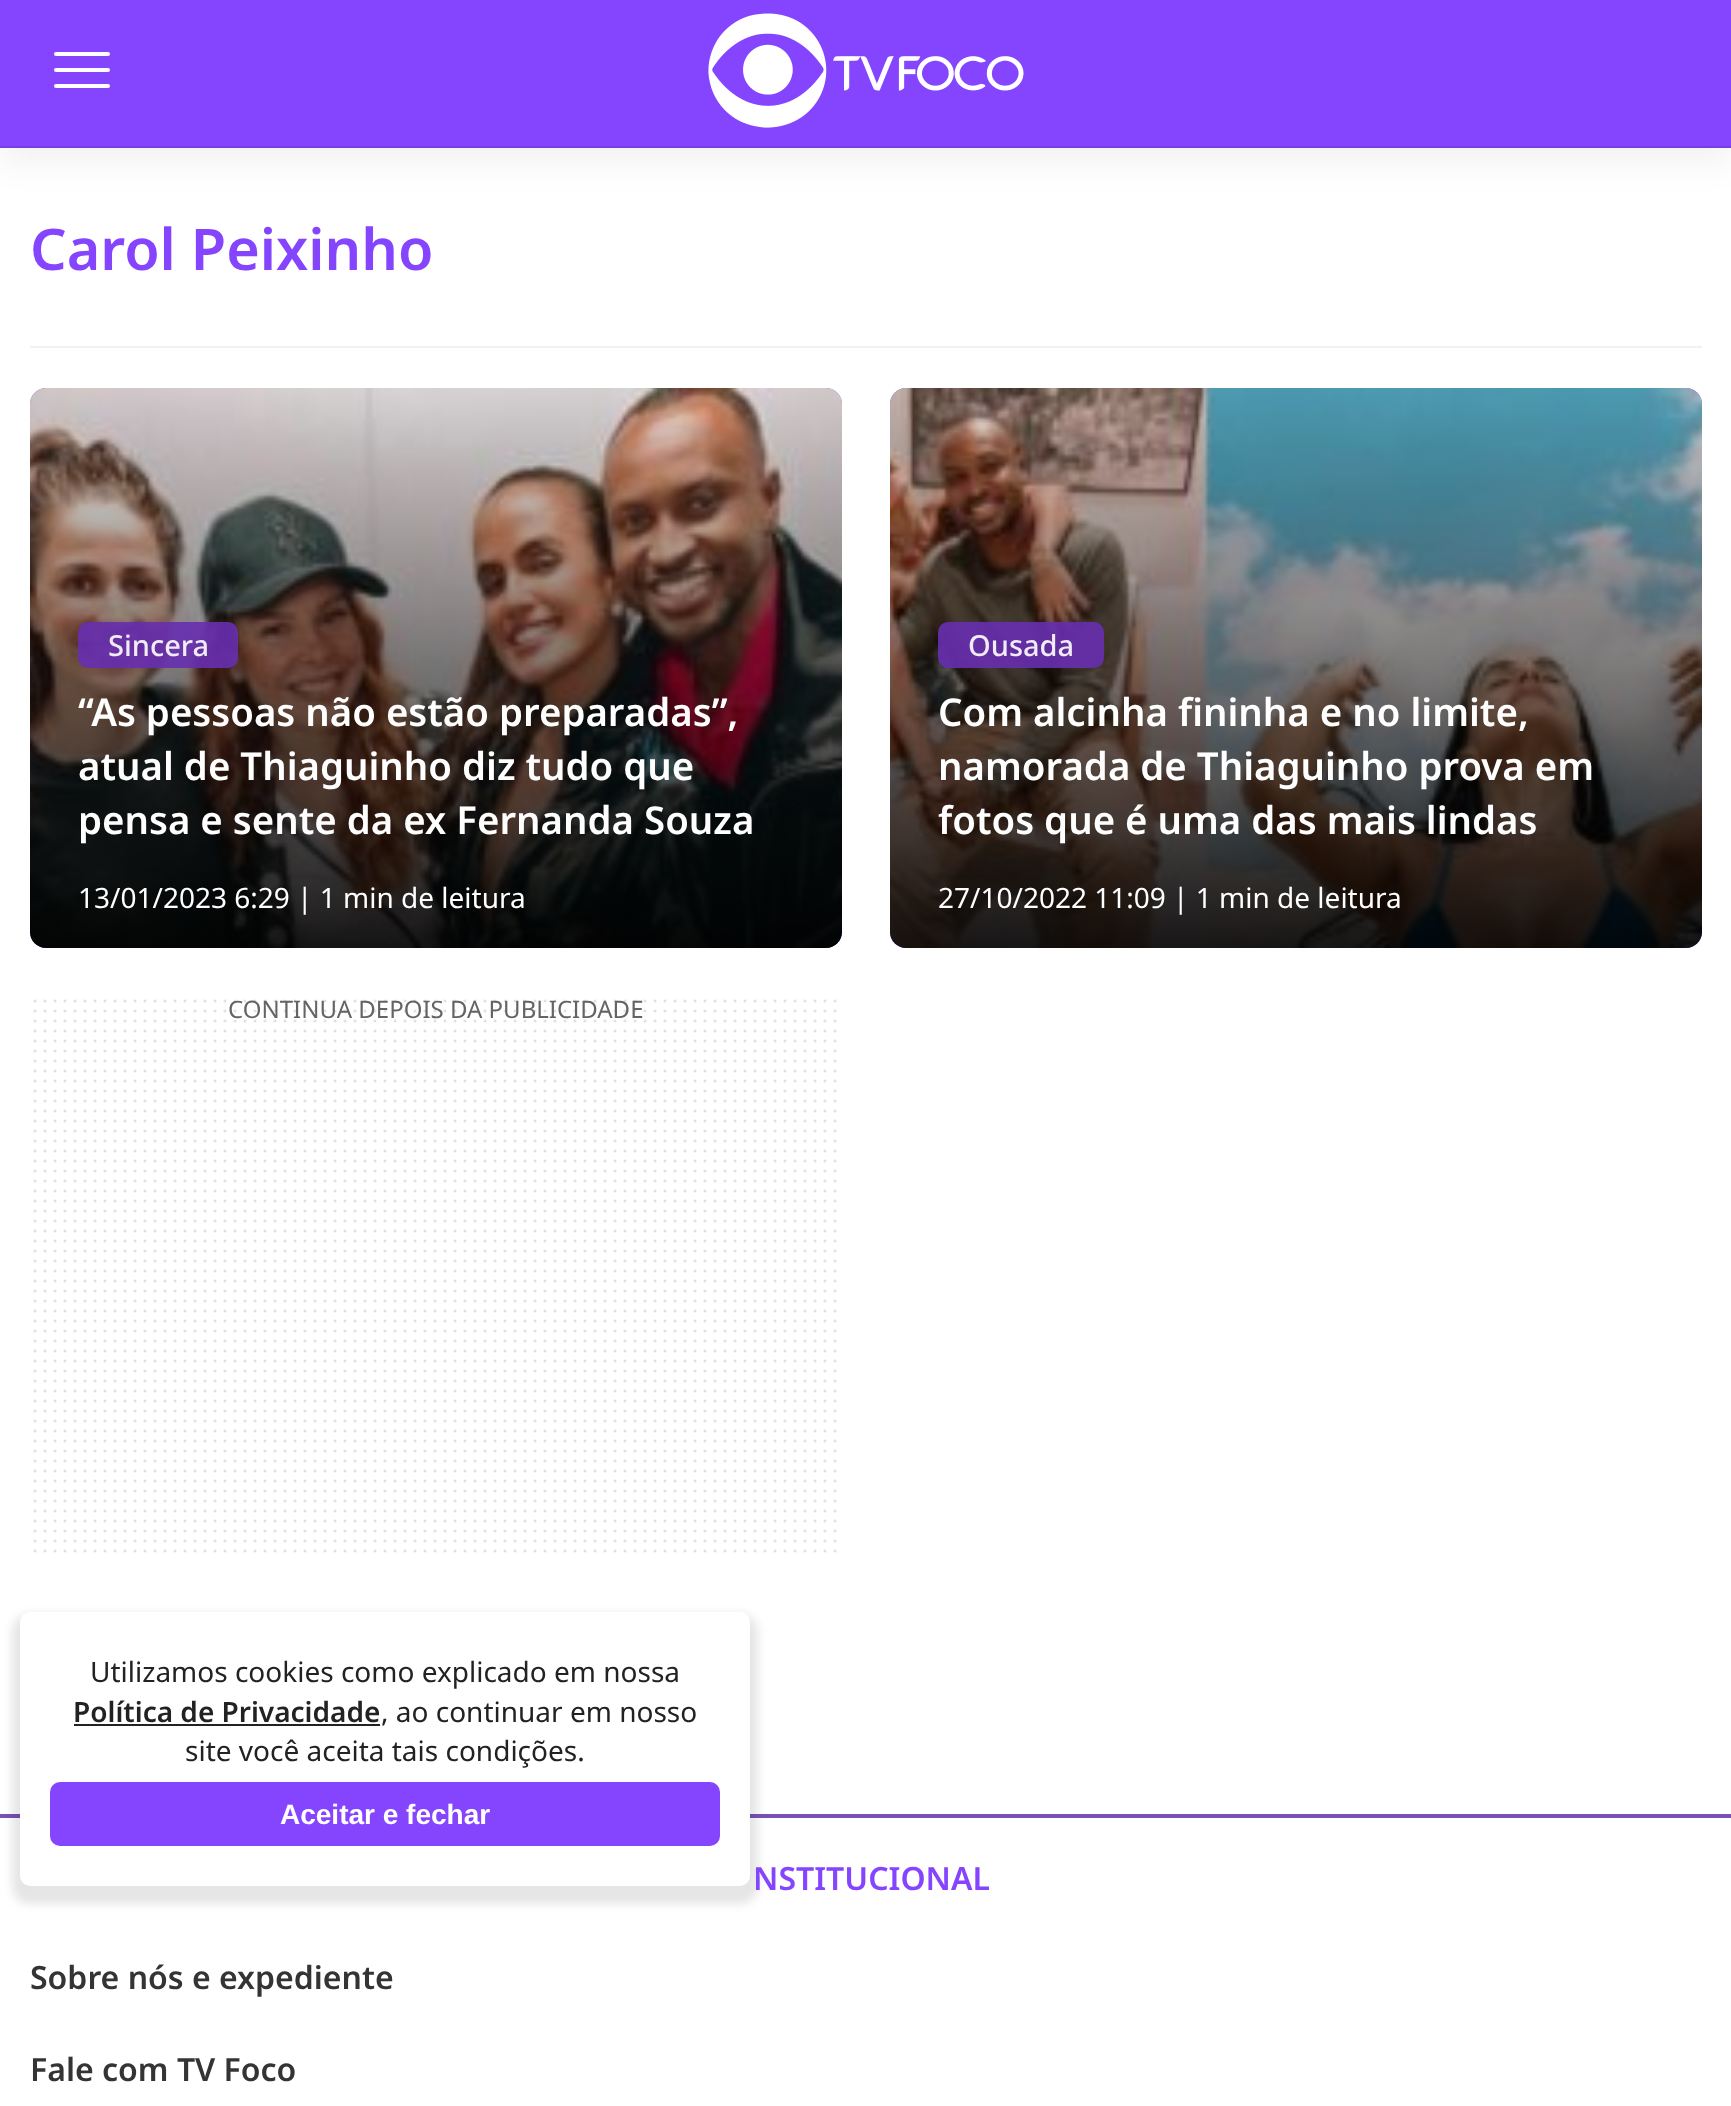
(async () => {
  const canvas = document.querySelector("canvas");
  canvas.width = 1731;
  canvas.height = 2106;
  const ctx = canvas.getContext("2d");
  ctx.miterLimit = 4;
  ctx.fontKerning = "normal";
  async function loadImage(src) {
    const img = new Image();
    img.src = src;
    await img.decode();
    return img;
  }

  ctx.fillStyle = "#ffffff";
  ctx.fillRect(0, 0, 1731, 2106);
  ctx.fillStyle = "rgba(0, 0, 0, 0.05)";
  ctx.filter = "blur(16px)";
  ctx.beginPath();
  ctx.rect(0, 16, 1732, 148);
  ctx.fill();
  ctx.filter = "none";
  ctx.fillStyle = "#8545ff";
  ctx.fillRect(0, 0, 1731, 146);
  ctx.fillStyle = "#783ee6";
  ctx.fillRect(0, 146, 1731, 2);
  ctx.fillStyle = "#ffffff";
  ctx.beginPath();
  ctx.roundRect(54, 52, 56, 4, 2);
  ctx.fill();
  ctx.beginPath();
  ctx.roundRect(54, 68, 56, 4, 2);
  ctx.fill();
  ctx.beginPath();
  ctx.roundRect(54, 84, 56, 4, 2);
  ctx.fill();
  ctx.drawImage(await loadImage("img/1.png"), 708, 13, 316, 115);
  ctx.fillStyle = "#f2f2f2";
  ctx.fillRect(30, 346, 1672, 2);
  ctx.fillStyle = "#8545ff";
  ctx.beginPath();
  ctx.roundRect(30, 388, 812, 560, 16);
  ctx.fill();
  ctx.drawImage(await loadImage("img/2.png"), 30, 388, 812, 560);
  ctx.fillStyle = "rgba(103, 47, 176, 0.9)";
  ctx.beginPath();
  ctx.roundRect(78, 622, 160, 46, 10);
  ctx.fill();
  ctx.fillStyle = "#8545ff";
  ctx.beginPath();
  ctx.roundRect(890, 388, 812, 560, 16);
  ctx.fill();
  ctx.drawImage(await loadImage("img/3.png"), 890, 388, 812, 560);
  ctx.fillStyle = "rgba(103, 47, 176, 0.9)";
  ctx.beginPath();
  ctx.roundRect(938, 622, 166, 46, 10);
  ctx.fill();
  ctx.drawImage(await loadImage("img/4.png"), 33, 999, 804, 554);
  ctx.fillStyle = "#7851b8";
  ctx.fillRect(0, 1814, 1731, 4);
  ctx.fillStyle = "rgba(0, 0, 0, 0.1)";
  ctx.filter = "blur(5px)";
  ctx.beginPath();
  ctx.roundRect(12, 1614, 746, 290, 18);
  ctx.fill();
  ctx.filter = "none";
  ctx.fillStyle = "#ffffff";
  ctx.beginPath();
  ctx.roundRect(20, 1612, 730, 274, 10);
  ctx.fill();
  ctx.fillStyle = "#222222";
  ctx.fillRect(74, 1724, 306, 2);
  ctx.fillStyle = "#8545ff";
  ctx.beginPath();
  ctx.roundRect(52, 1784, 666, 60, 8);
  ctx.fill();
  ctx.strokeStyle = "#8545ff";
  ctx.lineWidth = 4;
  ctx.stroke();
  ctx.font = "600 57.5px Noto Sans";
  ctx.fillText("Carol Peixinho", 30, 270);
  ctx.font = "500 29px Noto Sans";
  ctx.fillStyle = "#f0ebf6";
  ctx.fillText("Sincera", 108, 656);
  ctx.font = "600 38.4px Noto Sans";
  ctx.fillStyle = "#ffffff";
  for (const [text, x, y] of [
    ["“As pessoas não estão preparadas”,", 78, 726],
    ["atual de Thiaguinho diz tudo que", 78, 780],
    ["pensa e sente da ex Fernanda Souza", 78, 834],
  ]) {
    ctx.fillText(text, x, y);
  }
  ctx.font = "28px Noto Sans";
  ctx.fillText("13/01/2023 6:29 | 1 min de leitura", 78, 908);
  ctx.font = "500 29px Noto Sans";
  ctx.fillStyle = "#f0ebf6";
  ctx.fillText("Ousada", 968, 656);
  ctx.font = "600 38.4px Noto Sans";
  ctx.fillStyle = "#ffffff";
  for (const [text, x, y] of [
    ["Com alcinha fininha e no limite,", 938, 726],
    ["namorada de Thiaguinho prova em", 938, 780],
    ["fotos que é uma das mais lindas", 938, 834],
  ]) {
    ctx.fillText(text, x, y);
  }
  ctx.font = "28px Noto Sans";
  ctx.fillText("27/10/2022 11:09 | 1 min de leitura", 938, 908);
  ctx.font = "24px Noto Sans";
  ctx.fillStyle = "#646464";
  ctx.fillText("CONTINUA DEPOIS DA PUBLICIDADE", 228, 1018);
  ctx.font = "28px Noto Sans";
  ctx.fillStyle = "#222222";
  ctx.fillText("Utilizamos cookies como explicado em nossa", 90, 1682);
  ctx.font = "600 28px Noto Sans";
  ctx.fillText("Política de Privacidade", 73, 1722);
  ctx.font = "28px Noto Sans";
  ctx.fillText(", ao continuar em nosso", 381, 1722);
  ctx.fillText("site você aceita tais condições.", 185, 1761);
  ctx.font = "bold 28px Liberation Sans";
  ctx.fillStyle = "#ffffff";
  ctx.fillText("Aceitar e fechar", 280, 1824);
  ctx.font = "600 32px Noto Sans";
  ctx.fillStyle = "#8545ff";
  ctx.fillText("NSTITUCIONAL", 753, 1890);
  ctx.fillStyle = "#353434";
  ctx.fillText("Sobre nós e expediente", 30, 1989);
  ctx.fillText("Fale com TV Foco", 30, 2081);
})();
